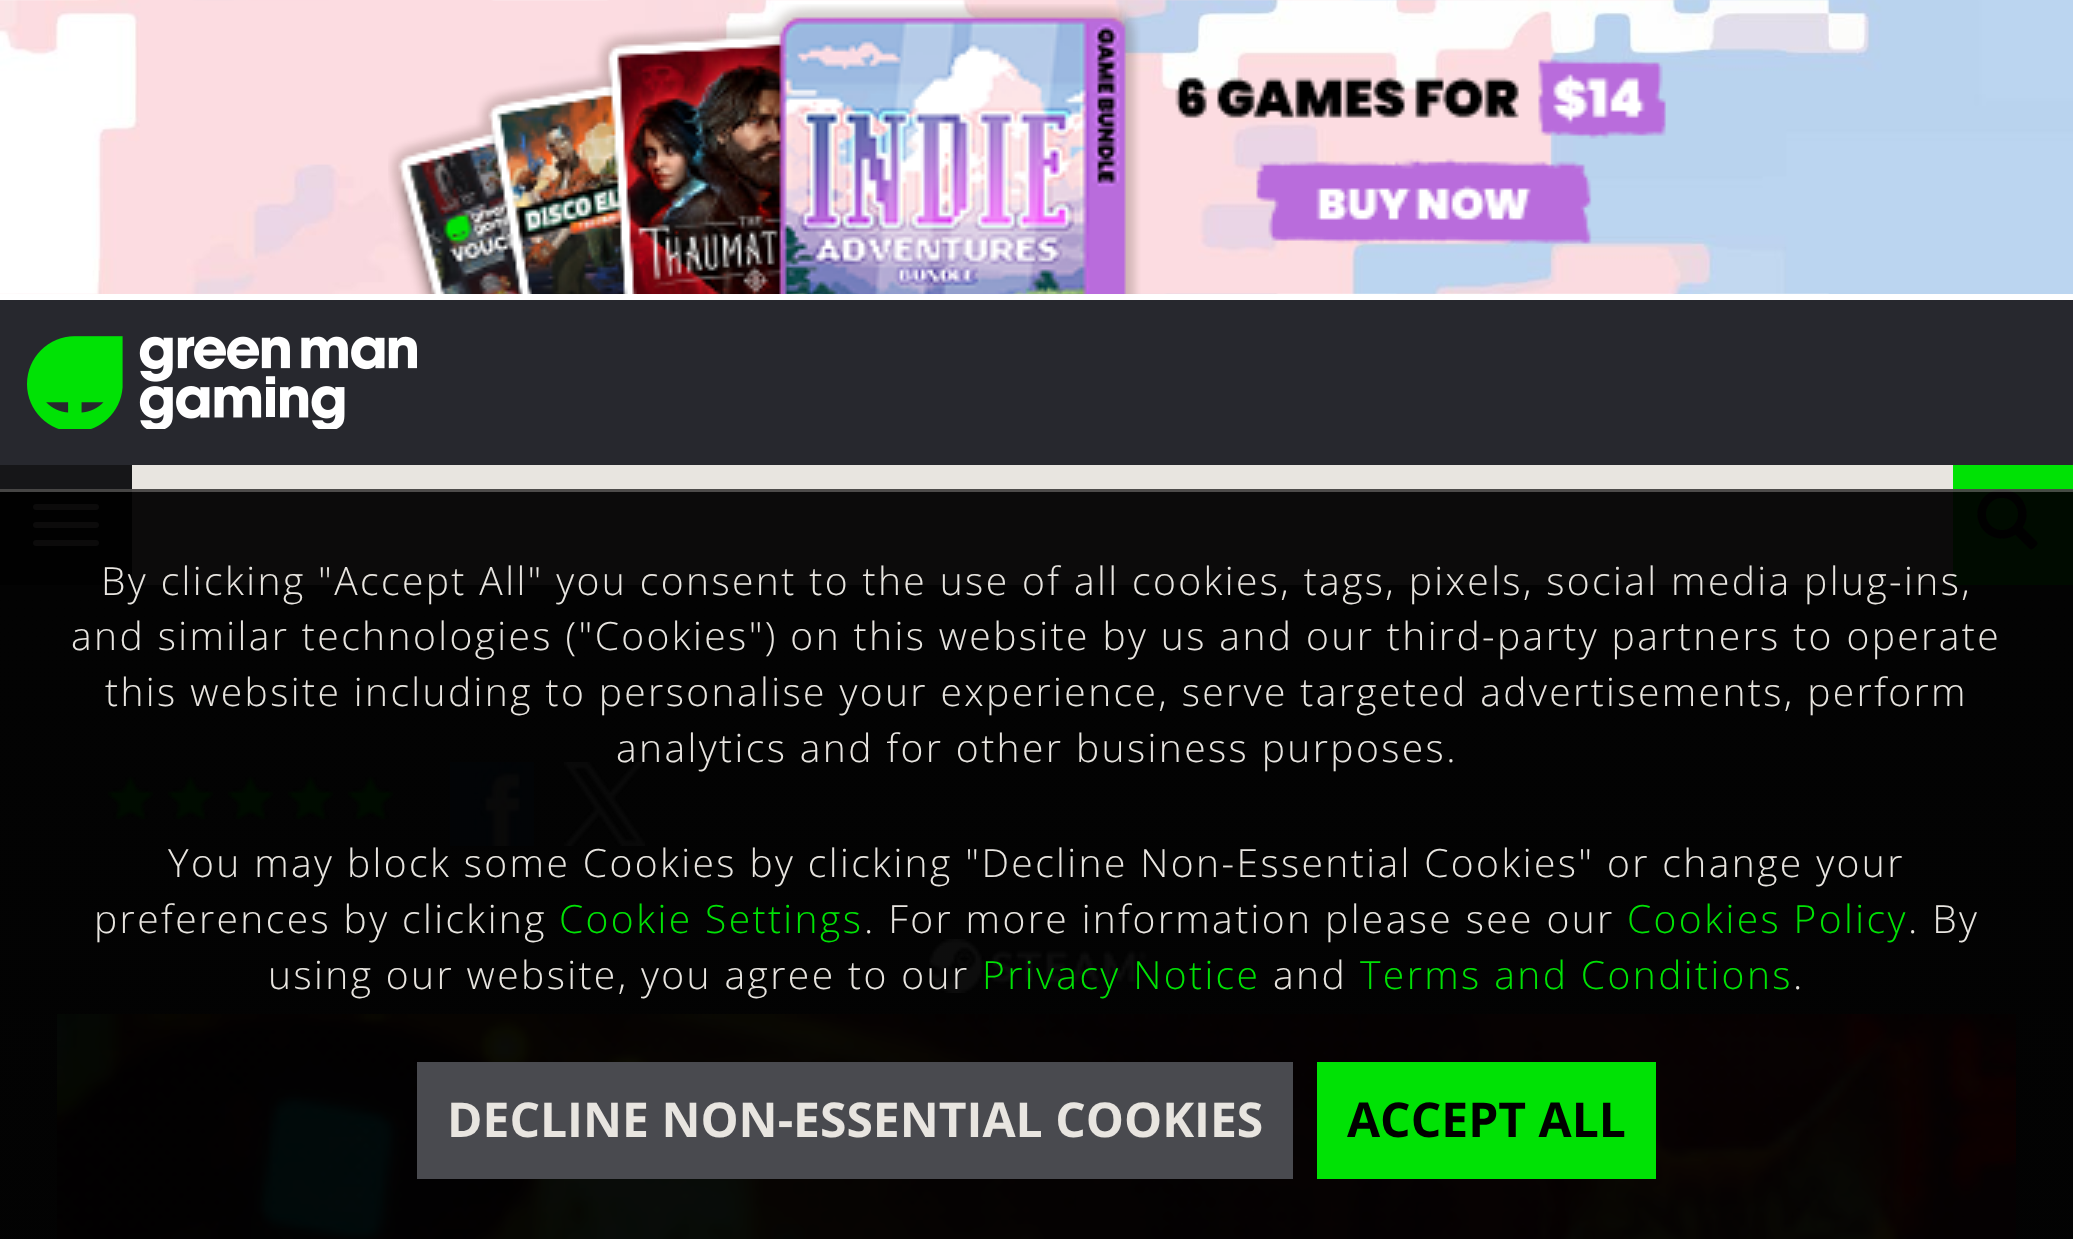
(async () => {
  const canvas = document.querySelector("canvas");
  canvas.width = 2073;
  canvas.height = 1239;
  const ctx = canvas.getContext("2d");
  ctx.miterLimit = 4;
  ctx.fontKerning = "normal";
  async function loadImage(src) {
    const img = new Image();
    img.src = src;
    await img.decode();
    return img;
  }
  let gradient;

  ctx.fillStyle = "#27282e";
  ctx.fillRect(0, 0, 2073, 1239);
  ctx.drawImage(await loadImage("img/1.png"), 0, 0, 2073, 294);
  ctx.fillStyle = "#ffffff";
  ctx.fillRect(0, 294, 2073, 6);
  ctx.drawImage(await loadImage("img/2.png"), 388, 4, 1278, 290);
  ctx.drawImage(await loadImage("img/3.png"), 27, 336, 390, 93);
  ctx.fillStyle = "#161618";
  ctx.fillRect(0, 465, 132, 24);
  ctx.fillStyle = "#010101";
  ctx.fillRect(0, 489, 132, 96);
  ctx.fillStyle = "#0c0b0b";
  ctx.beginPath();
  ctx.roundRect(33, 504, 66, 6, 3);
  ctx.fill();
  ctx.beginPath();
  ctx.roundRect(33, 522, 66, 6, 3);
  ctx.fill();
  ctx.beginPath();
  ctx.roundRect(33, 540, 66, 6, 3);
  ctx.fill();
  for (const [x, y, w, h, color] of [
    [132, 465, 1821, 24, "#e8e5e0"],
    [132, 489, 1821, 96, "#0c0b0b"],
    [1953, 465, 120, 24, "#00e205"],
    [1953, 489, 120, 96, "#000b00"],
  ]) {
    ctx.fillStyle = color;
    ctx.fillRect(x, y, w, h);
  }
  ctx.drawImage(await loadImage("img/4.png"), 1977, 489, 61, 61);
  gradient = ctx.createLinearGradient(1036, 585, 1037, 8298);
  gradient.addColorStop(0, "#030303");
  gradient.addColorStop(0.19, "#020202");
  ctx.fillStyle = gradient;
  ctx.fillRect(0, 585, 2073, 654);
  ctx.drawImage(await loadImage("img/5.png"), 108, 777, 45, 42);
  ctx.drawImage(await loadImage("img/5.png"), 168, 777, 45, 42);
  ctx.drawImage(await loadImage("img/5.png"), 228, 777, 45, 42);
  ctx.drawImage(await loadImage("img/6.png"), 288, 777, 45, 42);
  ctx.drawImage(await loadImage("img/6.png"), 348, 777, 45, 42);
  ctx.drawImage(await loadImage("img/7.png"), 450, 762, 84, 84);
  ctx.drawImage(await loadImage("img/8.png"), 564, 762, 81, 84);
  ctx.drawImage(await loadImage("img/9.png"), 929, 939, 218, 54);
  ctx.drawImage(await loadImage("img/10.png"), 57, 1014, 1959, 225);
  for (const [x, y, w, h, color] of [
    [0, 489, 2073, 3, "rgba(232, 229, 224, 0.3)"],
    [417, 1062, 876, 117, "#494a4f"],
    [1317, 1062, 339, 117, "#00e205"],
  ]) {
    ctx.fillStyle = color;
    ctx.fillRect(x, y, w, h);
  }
  ctx.letterSpacing = "2.4px";
  ctx.font = "300 39px Open Sans";
  ctx.fillStyle = "#e8e5e0";
  for (const [text, x, y] of [
    ["By clicking \"Accept All\" you consent to the use of all cookies, tags, pixels, social media plug-ins,", 101, 595],
    ["and similar technologies (\"Cookies\") on this website by us and our third-party partners to operate", 71, 650],
    ["this website including to personalise your experience, serve targeted advertisements, perform", 105, 706],
    ["analytics and for other business purposes.", 616, 762],
    ["You may block some Cookies by clicking \"Decline Non-Essential Cookies\" or change your", 168, 877],
    ["preferences by clicking", 94, 933],
  ]) {
    ctx.fillText(text, x, y);
  }
  ctx.fillStyle = "#00e205";
  ctx.fillText("Cookie Settings", 559, 933);
  ctx.fillStyle = "#e8e5e0";
  ctx.fillText(". For more information please see our", 864, 933);
  ctx.fillStyle = "#00e205";
  ctx.fillText("Cookies Policy", 1627, 933);
  ctx.fillStyle = "#e8e5e0";
  ctx.fillText(". By", 1908, 933);
  ctx.fillText("using our website, you agree to our", 268, 989);
  ctx.fillStyle = "#00e205";
  ctx.fillText("Privacy Notice", 982, 989);
  ctx.fillStyle = "#e8e5e0";
  ctx.fillText("and", 1273, 989);
  ctx.fillStyle = "#00e205";
  ctx.fillText("Terms and Conditions", 1360, 989);
  ctx.fillStyle = "#e8e5e0";
  ctx.fillText(".", 1793, 989);
  ctx.letterSpacing = "0px";
  ctx.font = "bold 48px Open Sans";
  ctx.fillText("DECLINE NON-ESSENTIAL COOKIES", 447, 1137);
  ctx.fillStyle = "#000000";
  ctx.fillText("ACCEPT ALL", 1347, 1137);
})();
